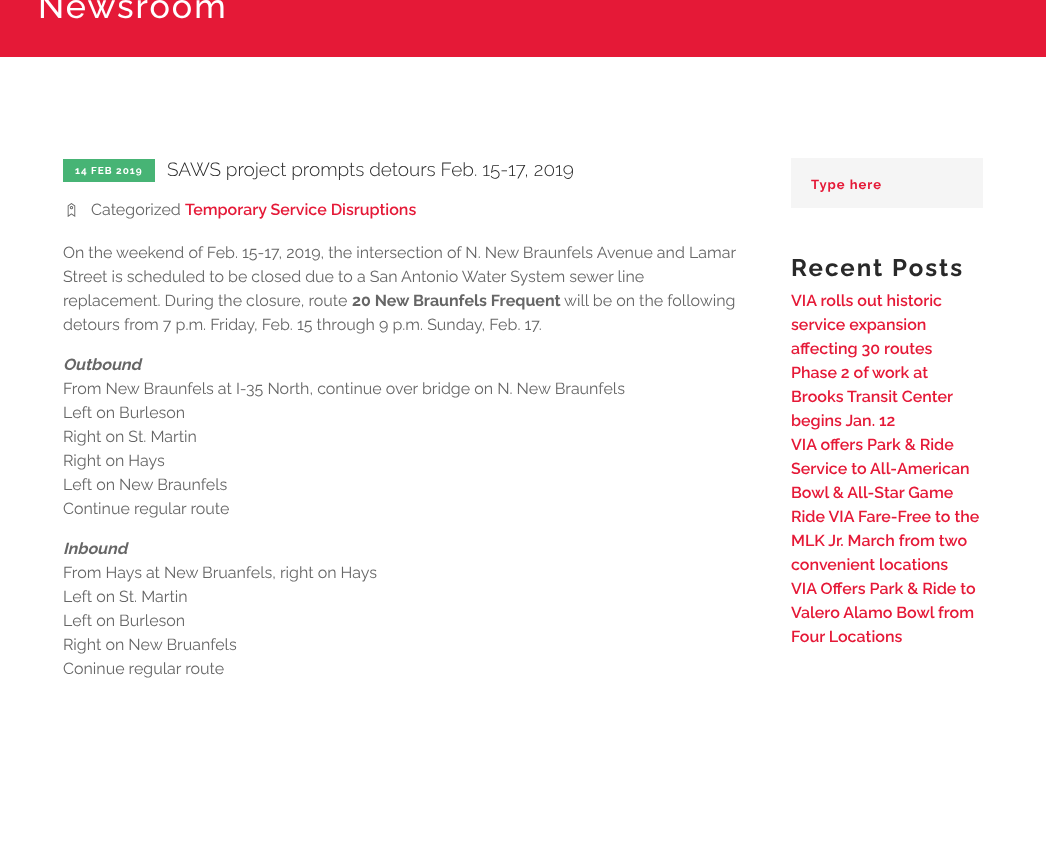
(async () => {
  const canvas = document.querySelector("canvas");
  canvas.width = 1046;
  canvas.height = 844;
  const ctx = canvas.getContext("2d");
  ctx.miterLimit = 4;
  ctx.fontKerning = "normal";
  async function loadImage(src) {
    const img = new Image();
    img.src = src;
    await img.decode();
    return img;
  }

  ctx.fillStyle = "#ffffff";
  ctx.fillRect(0, 0, 1046, 844);
  ctx.fillStyle = "#e51937";
  ctx.fillRect(0, 0, 1046, 57);
  ctx.fillStyle = "#47b475";
  ctx.fillRect(63, 159, 92, 23);
  ctx.drawImage(await loadImage("img/1.png"), 67, 203, 9, 14);
  ctx.fillStyle = "#f5f5f5";
  ctx.fillRect(791, 158, 192, 50);
  ctx.letterSpacing = "2px";
  ctx.font = "500 34px Raleway";
  ctx.fillStyle = "#ffffff";
  ctx.fillText("Newsroom", 38, 18);
  ctx.letterSpacing = "1px";
  ctx.font = "bold 10px Raleway";
  ctx.fillText("14 FEB 2019", 75, 174);
  ctx.letterSpacing = "0px";
  ctx.font = "300 19px Raleway";
  ctx.fillStyle = "#292929";
  ctx.fillText("SAWS project prompts detours Feb. 15-17, 2019", 167, 176);
  ctx.font = "16px Raleway";
  ctx.fillStyle = "#666666";
  ctx.fillText("Categorized", 91, 215);
  ctx.font = "600 16px Raleway";
  ctx.fillStyle = "#e51937";
  ctx.fillText("Temporary Service Disruptions", 185, 215);
  ctx.font = "16px Raleway";
  ctx.fillStyle = "#666666";
  for (const [text, x, y] of [
    ["On the weekend of Feb. 15-17, 2019, the intersection of N. New Braunfels Avenue and Lamar", 63, 258],
    ["Street is scheduled to be closed due to a San Antonio Water System sewer line", 63, 282],
    ["replacement. During the closure, route", 63, 306],
  ]) {
    ctx.fillText(text, x, y);
  }
  ctx.font = "bold 16px Raleway";
  ctx.fillText("20 New Braunfels Frequent", 352, 306);
  ctx.font = "16px Raleway";
  ctx.fillText("will be on the following", 564, 306);
  ctx.fillText("detours from 7 p.m. Friday, Feb. 15 through 9 p.m. Sunday, Feb. 17.", 63, 330);
  ctx.font = "italic bold 16px Raleway";
  ctx.fillText("Outbound", 63, 370);
  ctx.font = "16px Raleway";
  for (const [text, x, y] of [
    ["From New Braunfels at I-35 North, continue over bridge on N. New Braunfels", 63, 394],
    ["Left on Burleson", 63, 418],
    ["Right on St. Martin", 63, 442],
    ["Right on Hays", 63, 466],
    ["Left on New Braunfels", 63, 490],
    ["Continue regular route", 63, 514],
  ]) {
    ctx.fillText(text, x, y);
  }
  ctx.font = "italic bold 16px Raleway";
  ctx.fillText("Inbound", 63, 554);
  ctx.font = "16px Raleway";
  for (const [text, x, y] of [
    ["From Hays at New Bruanfels, right on Hays", 63, 578],
    ["Left on St. Martin", 63, 602],
    ["Left on Burleson", 63, 626],
    ["Right on New Bruanfels", 63, 650],
    ["Coninue regular route", 63, 674],
  ]) {
    ctx.fillText(text, x, y);
  }
  ctx.save();
  ctx.beginPath();
  ctx.rect(811, 177, 172, 15);
  ctx.clip();
  ctx.letterSpacing = "1px";
  ctx.font = "bold 13px Raleway";
  ctx.fillStyle = "#e51937";
  ctx.fillText("Type here", 811, 189);
  ctx.restore();
  ctx.letterSpacing = "2px";
  ctx.font = "bold 24px Raleway";
  ctx.fillStyle = "#292929";
  ctx.fillText("Recent Posts", 791, 276);
  ctx.letterSpacing = "0px";
  ctx.font = "600 16px Raleway";
  ctx.fillStyle = "#e51937";
  for (const [text, x, y] of [
    ["VIA rolls out historic", 791, 306],
    ["service expansion", 791, 330],
    ["affecting 30 routes", 791, 354],
    ["Phase 2 of work at", 791, 378],
    ["Brooks Transit Center", 791, 402],
    ["begins Jan. 12", 791, 426],
    ["VIA offers Park & Ride", 791, 450],
    ["Service to All-American", 791, 474],
    ["Bowl & All-Star Game", 791, 498],
    ["Ride VIA Fare-Free to the", 791, 522],
    ["MLK Jr. March from two", 791, 546],
    ["convenient locations", 791, 570],
    ["VIA Offers Park & Ride to", 791, 594],
    ["Valero Alamo Bowl from", 791, 618],
    ["Four Locations", 791, 642],
  ]) {
    ctx.fillText(text, x, y);
  }
})();
